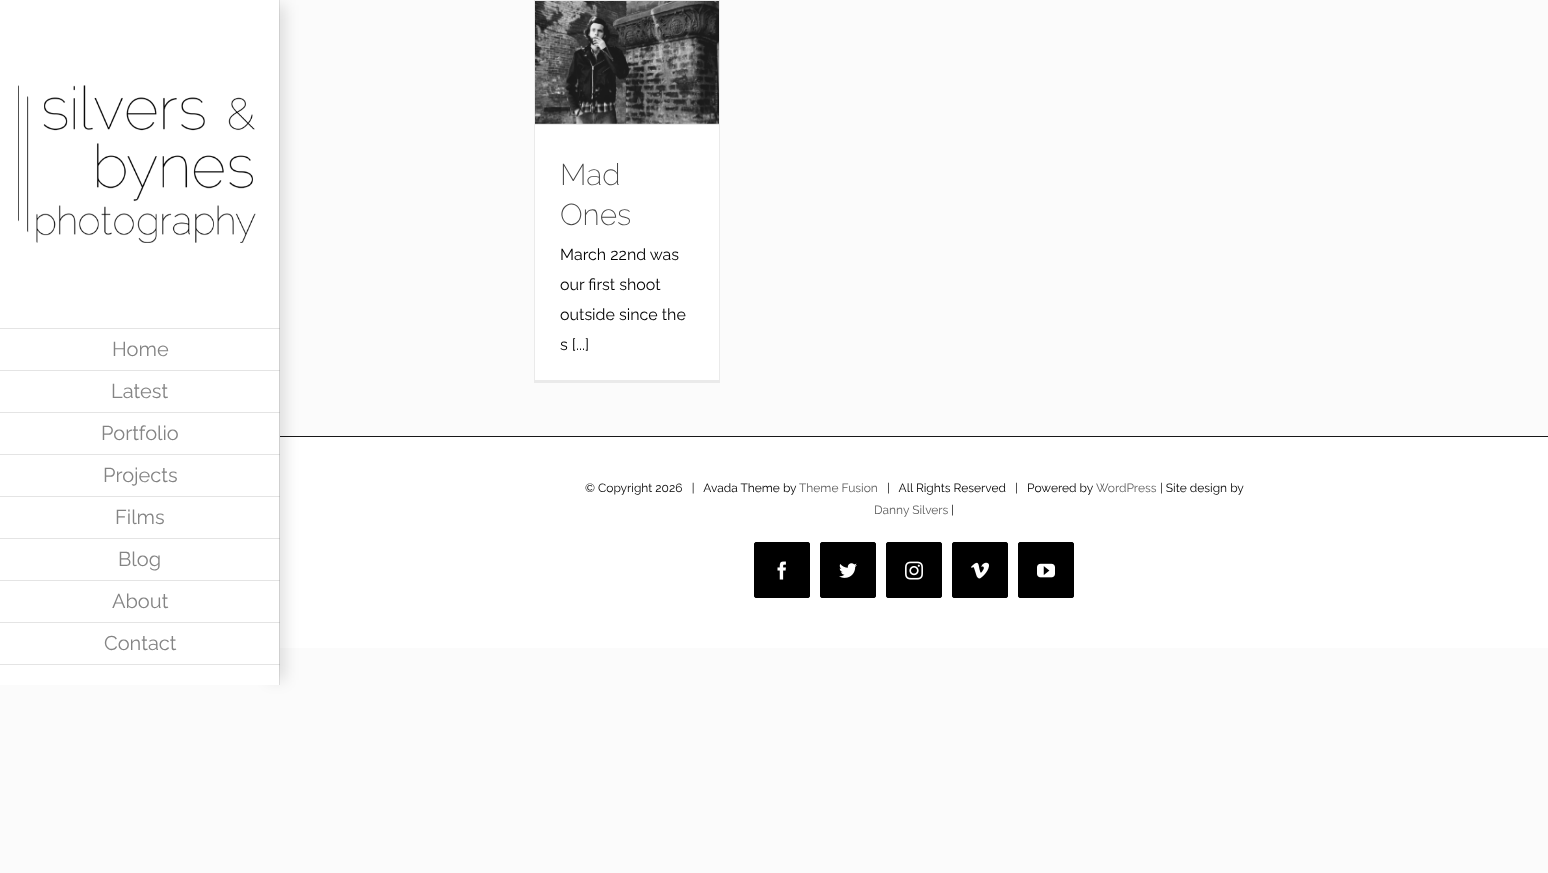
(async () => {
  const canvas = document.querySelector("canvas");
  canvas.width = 1548;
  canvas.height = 873;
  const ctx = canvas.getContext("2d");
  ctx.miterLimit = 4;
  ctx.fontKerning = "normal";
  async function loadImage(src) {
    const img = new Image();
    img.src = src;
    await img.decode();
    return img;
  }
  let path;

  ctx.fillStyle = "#fbfbfb";
  ctx.fillRect(0, 0, 1548, 873);
  for (const [x, y, w, h, color] of [
    [535, 123, 184, 257, "#ffffff"],
    [534, 0, 186, 1, "#eaeaea"],
    [719, 0, 1, 383, "#eaeaea"],
    [534, 380, 186, 3, "#eaeaea"],
    [534, 0, 1, 383, "#eaeaea"],
    [535, 124, 184, 1, "#eaeaea"],
  ]) {
    ctx.fillStyle = color;
    ctx.fillRect(x, y, w, h);
  }
  ctx.drawImage(await loadImage("img/1.png"), 535, 1, 184, 123);
  ctx.fillStyle = "#ffffff";
  ctx.fillRect(0, 0, 279, 685);
  ctx.fillStyle = "#e4e4e4";
  ctx.fillRect(279, 0, 1, 685);
  ctx.drawImage(await loadImage("img/2.png"), 18, 85, 238, 158);
  ctx.fillStyle = "#ffffff";
  ctx.fillRect(280, 437, 1268, 211);
  ctx.fillStyle = "#181819";
  ctx.fillRect(280, 436, 1268, 1);
  ctx.save();
  path = new Path2D("M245 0H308V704H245ZM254 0H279V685H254Z");
  ctx.clip(path, "evenodd");
  ctx.fillStyle = "rgba(0, 0, 0, 0.14)";
  ctx.filter = "blur(7.5px)";
  ctx.beginPath();
  ctx.rect(269, 5, 15, 675);
  ctx.fill();
  ctx.filter = "none";
  ctx.restore();
  for (const [x, y, w, h, color] of [
    [0, 328, 280, 1, "rgba(147, 147, 147, 0.25)"],
    [0, 370, 280, 1, "rgba(147, 147, 147, 0.25)"],
    [0, 412, 280, 1, "rgba(147, 147, 147, 0.25)"],
    [0, 454, 280, 1, "rgba(147, 147, 147, 0.25)"],
    [0, 496, 280, 1, "rgba(147, 147, 147, 0.25)"],
    [0, 538, 280, 1, "rgba(147, 147, 147, 0.25)"],
    [0, 580, 280, 1, "rgba(147, 147, 147, 0.25)"],
    [0, 622, 280, 1, "rgba(147, 147, 147, 0.25)"],
    [0, 664, 280, 1, "rgba(147, 147, 147, 0.25)"],
  ]) {
    ctx.fillStyle = color;
    ctx.fillRect(x, y, w, h);
  }
  ctx.fillStyle = "#000000";
  ctx.beginPath();
  ctx.roundRect(754.5, 542.5, 55, 55, 1.5);
  ctx.fill();
  ctx.strokeStyle = "#000000";
  ctx.stroke();
  ctx.drawImage(await loadImage("img/3.png"), 777, 561, 9, 19);
  ctx.beginPath();
  ctx.roundRect(820.5, 542.5, 55, 55, 1.5);
  ctx.fill();
  ctx.stroke();
  ctx.drawImage(await loadImage("img/4.png"), 839, 563, 18, 15);
  ctx.beginPath();
  ctx.roundRect(886.5, 542.5, 55, 55, 1.5);
  ctx.fill();
  ctx.stroke();
  ctx.drawImage(await loadImage("img/5.png"), 905, 561, 18, 19);
  ctx.beginPath();
  ctx.roundRect(952.5, 542.5, 55, 55, 1.5);
  ctx.fill();
  ctx.stroke();
  ctx.drawImage(await loadImage("img/6.png"), 971, 562, 18, 17);
  ctx.beginPath();
  ctx.roundRect(1018.5, 542.5, 55, 55, 1.5);
  ctx.fill();
  ctx.stroke();
  ctx.drawImage(await loadImage("img/7.png"), 1037, 563, 18, 15);
  ctx.font = "200 30px Raleway";
  ctx.fillStyle = "#464646";
  ctx.fillText("Mad", 560, 185);
  ctx.fillText("Ones", 560, 225);
  ctx.font = "16px Raleway";
  ctx.fillStyle = "#000000";
  for (const [text, x, y] of [
    ["March 22nd was", 560, 260],
    ["our first shoot", 560, 290],
    ["outside since the", 560, 320],
    ["s [...]", 560, 350],
  ]) {
    ctx.fillText(text, x, y);
  }
  ctx.font = "20px Raleway";
  ctx.fillStyle = "#848484";
  for (const [text, x, y] of [
    ["Home", 112, 356],
    ["Latest", 111, 398],
    ["Portfolio", 101, 440],
    ["Projects", 103, 482],
    ["Films", 115, 524],
    ["Blog", 118, 566],
    ["About", 112, 608],
    ["Contact", 104, 650],
  ]) {
    ctx.fillText(text, x, y);
  }
  ctx.font = "12px Raleway";
  ctx.fillStyle = "#000000";
  ctx.fillText("© Copyright 2026   |   Avada Theme by", 585, 492);
  ctx.fillStyle = "#5e5e5e";
  ctx.fillText("Theme Fusion", 799, 492);
  ctx.fillStyle = "#000000";
  ctx.fillText("|   All Rights Reserved   |   Powered by", 887, 492);
  ctx.fillStyle = "#5e5e5e";
  ctx.fillText("WordPress", 1096, 492);
  ctx.fillStyle = "#000000";
  ctx.fillText("| Site design by", 1160, 492);
  ctx.fillStyle = "#5e5e5e";
  ctx.fillText("Danny Silvers", 874, 514);
  ctx.fillStyle = "#000000";
  ctx.fillText("|", 951, 514);
})();
